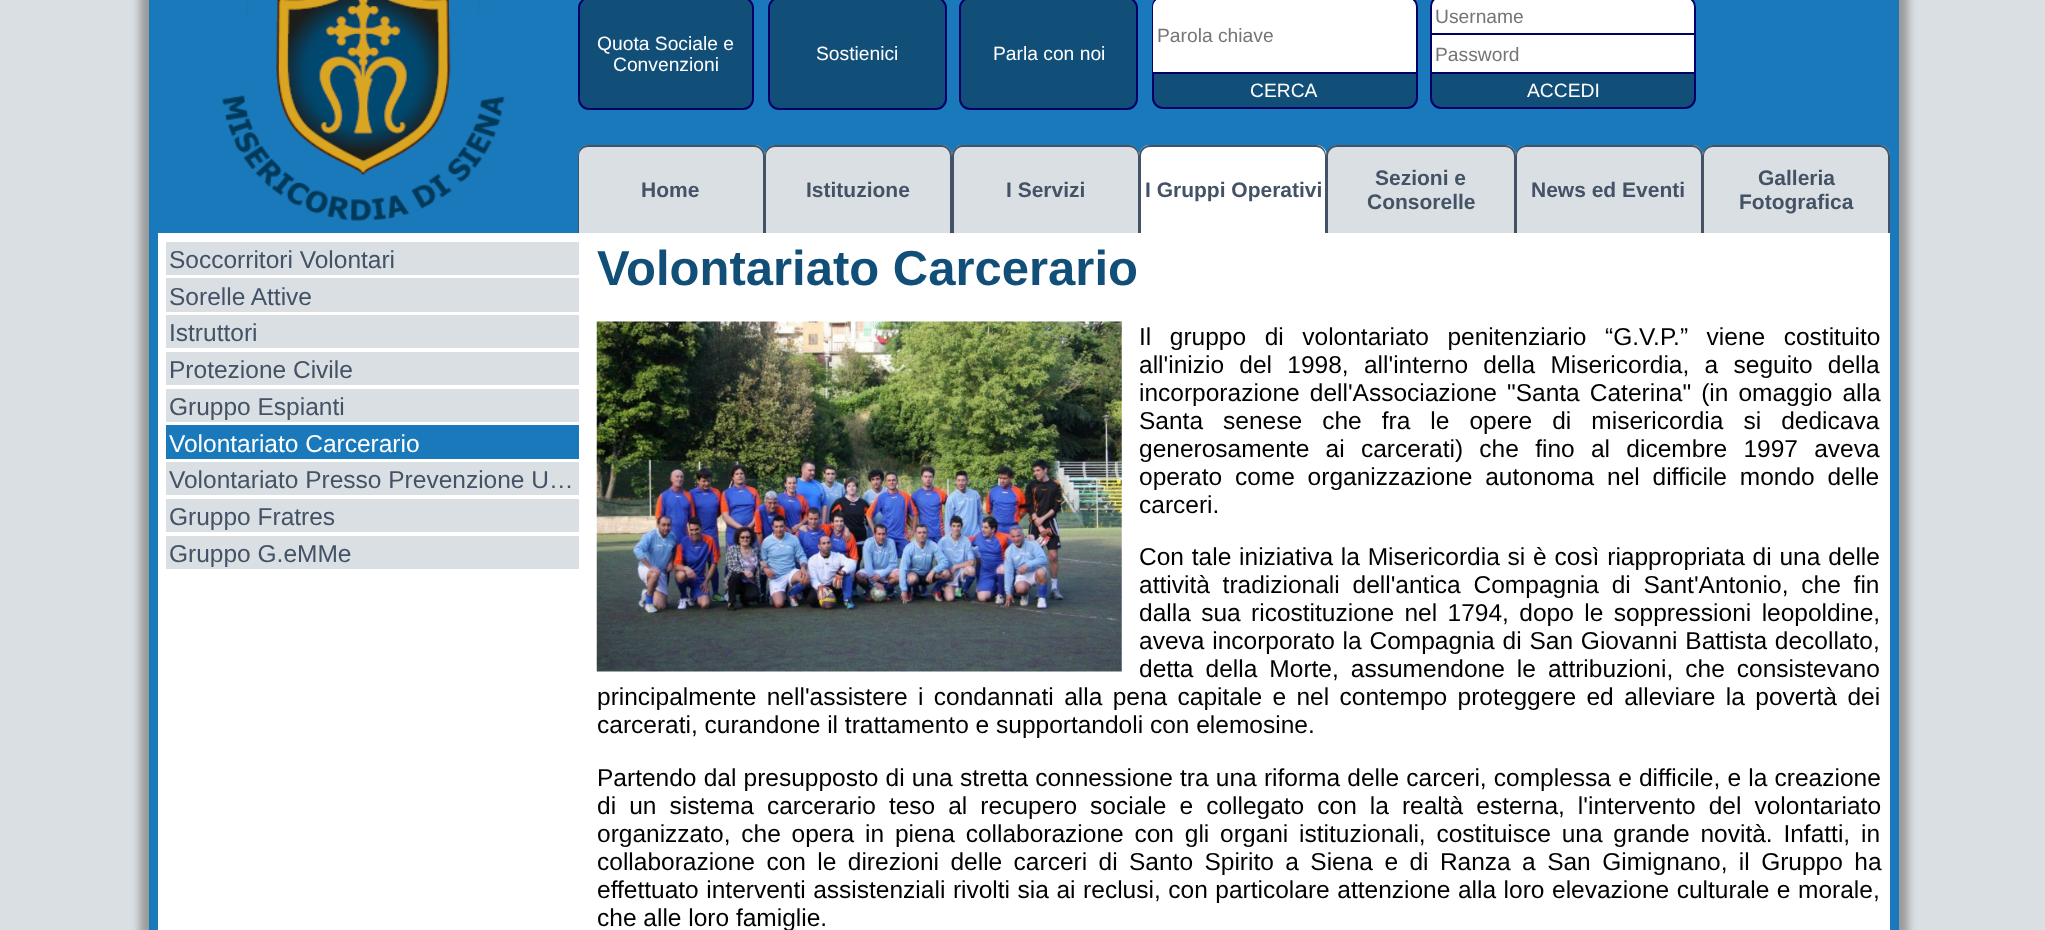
(async () => {
  const canvas = document.querySelector("canvas");
  canvas.width = 2045;
  canvas.height = 930;
  const ctx = canvas.getContext("2d");
  ctx.miterLimit = 4;
  ctx.fontKerning = "normal";
  async function loadImage(src) {
    const img = new Image();
    img.src = src;
    await img.decode();
    return img;
  }
  let path;

  ctx.fillStyle = "#d9dfe3";
  ctx.fillRect(0, 0, 2045, 930);
  ctx.fillStyle = "#999999";
  ctx.filter = "blur(4.5px)";
  ctx.beginPath();
  ctx.rect(140, -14, 1768, 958);
  ctx.fill();
  ctx.filter = "none";
  ctx.fillStyle = "#1a79ba";
  ctx.fillRect(149, 0, 1750, 930);
  ctx.drawImage(await loadImage("img/1.png"), 222, 0, 283, 221);
  ctx.fillStyle = "#124f78";
  ctx.beginPath();
  ctx.roundRect(579, -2, 174, 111, 10);
  ctx.fill();
  ctx.strokeStyle = "#000066";
  ctx.lineWidth = 2;
  ctx.stroke();
  ctx.beginPath();
  ctx.roundRect(769, -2, 177, 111, 10);
  ctx.fill();
  ctx.stroke();
  ctx.beginPath();
  ctx.roundRect(960, -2, 177, 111, 10);
  ctx.fill();
  ctx.stroke();
  ctx.fillStyle = "#ffffff";
  path = new Path2D("M1163-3H1407C1413-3 1418 2 1418 8V72H1152V8C1152 2 1157-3 1163-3Z");
  ctx.fill(path);
  ctx.fillStyle = "#000066";
  path = new Path2D("M1162-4H1407C1413-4 1418 1 1418 7V72H1152V7C1152 1 1156-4 1162-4ZM1162-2H1407C1412-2 1416 2 1416 7V72H1153V7C1153 2 1157-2 1162-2Z");
  ctx.fill(path, "evenodd");
  ctx.fillStyle = "#124f78";
  ctx.beginPath();
  ctx.roundRect(1153, 73, 264, 35, [0, 0, 10, 10]);
  ctx.fill();
  ctx.stroke();
  ctx.fillStyle = "#ffffff";
  path = new Path2D("M1441-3H1685C1691-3 1696 2 1696 8V33H1430V8C1430 2 1435-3 1441-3Z");
  ctx.fill(path);
  ctx.fillStyle = "#000066";
  path = new Path2D("M1440-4H1685C1691-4 1696 1 1696 7V33H1430V7C1430 1 1434-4 1440-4ZM1440-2H1685C1690-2 1694 2 1694 7V33H1432V7C1432 2 1435-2 1440-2Z");
  ctx.fill(path, "evenodd");
  for (const [x, y, w, h, color] of [
    [1432, 35, 262, 37, "#ffffff"],
    [1430, 33, 266, 2, "#000066"],
    [1694, 33, 2, 39, "#000066"],
    [1430, 33, 2, 39, "#000066"],
  ]) {
    ctx.fillStyle = color;
    ctx.fillRect(x, y, w, h);
  }
  ctx.fillStyle = "#124f78";
  ctx.beginPath();
  ctx.roundRect(1431, 73, 264, 35, [0, 0, 10, 10]);
  ctx.fill();
  ctx.stroke();
  ctx.fillStyle = "#d9dfe3";
  ctx.beginPath();
  ctx.roundRect(578, 145, 187, 88, [11, 11, 0, 0]);
  ctx.fill();
  ctx.fillStyle = "#445266";
  path = new Path2D("M588 145H754C760 145 765 150 765 156V233H578V156C578 150 582 145 588 145ZM588 147H754C759 147 763 151 763 156V233H579V156C579 151 583 147 588 147Z");
  ctx.fill(path, "evenodd");
  ctx.fillStyle = "#d9dfe3";
  ctx.beginPath();
  ctx.roundRect(765, 145, 187, 88, [11, 11, 0, 0]);
  ctx.fill();
  ctx.fillStyle = "#445266";
  path = new Path2D("M775 145H942C947 145 952 150 952 156V233H765V156C765 150 769 145 775 145ZM775 147H942C946 147 950 151 950 156V233H766V156C766 151 770 147 775 147Z");
  ctx.fill(path, "evenodd");
  ctx.fillStyle = "#d9dfe3";
  ctx.beginPath();
  ctx.roundRect(952, 145, 187, 88, [11, 11, 0, 0]);
  ctx.fill();
  ctx.fillStyle = "#445266";
  path = new Path2D("M962 145H1129C1135 145 1139 150 1139 156V233H952V156C952 150 957 145 962 145ZM962 147H1129C1134 147 1138 151 1138 156V233H954V156C954 151 958 147 962 147Z");
  ctx.fill(path, "evenodd");
  ctx.fillStyle = "#ffffff";
  ctx.beginPath();
  ctx.roundRect(1139, 145, 188, 88, [11, 11, 0, 0]);
  ctx.fill();
  ctx.fillStyle = "#445266";
  path = new Path2D("M1150 145H1316C1322 145 1326 150 1326 156V233H1139V156C1139 150 1144 145 1150 145ZM1150 147H1316C1321 147 1325 151 1325 156V233H1141V156C1141 151 1145 147 1150 147Z");
  ctx.fill(path, "evenodd");
  ctx.fillStyle = "#d9dfe3";
  ctx.beginPath();
  ctx.roundRect(1327, 145, 189, 88, [11, 11, 0, 0]);
  ctx.fill();
  ctx.fillStyle = "#445266";
  path = new Path2D("M1337 145H1505C1511 145 1516 150 1516 156V233H1326V156C1326 150 1331 145 1337 145ZM1337 147H1505C1510 147 1514 151 1514 156V233H1328V156C1328 151 1332 147 1337 147Z");
  ctx.fill(path, "evenodd");
  ctx.fillStyle = "#d9dfe3";
  ctx.beginPath();
  ctx.roundRect(1516, 145, 187, 88, [11, 11, 0, 0]);
  ctx.fill();
  ctx.fillStyle = "#445266";
  path = new Path2D("M1526 145H1692C1698 145 1703 150 1703 156V233H1516V156C1516 150 1520 145 1526 145ZM1526 147H1692C1697 147 1701 151 1701 156V233H1517V156C1517 151 1521 147 1526 147Z");
  ctx.fill(path, "evenodd");
  ctx.fillStyle = "#d9dfe3";
  ctx.beginPath();
  ctx.roundRect(1703, 145, 187, 88, [11, 11, 0, 0]);
  ctx.fill();
  ctx.fillStyle = "#445266";
  path = new Path2D("M1713 145H1880C1885 145 1890 150 1890 156V233H1703V156C1703 150 1707 145 1713 145ZM1713 147H1880C1884 147 1888 151 1888 156V233H1704V156C1704 151 1708 147 1713 147Z");
  ctx.fill(path, "evenodd");
  for (const [x, y, w, h, color] of [
    [158, 233, 1732, 697, "#ffffff"],
    [166, 242, 413, 33, "#d9dfe3"],
    [166, 278, 413, 34, "#d9dfe3"],
    [166, 315, 413, 33, "#d9dfe3"],
    [166, 352, 413, 33, "#d9dfe3"],
    [166, 389, 413, 33, "#d9dfe3"],
    [166, 425, 413, 34, "#1a79ba"],
    [166, 462, 413, 33, "#d9dfe3"],
    [166, 499, 413, 33, "#d9dfe3"],
    [166, 536, 413, 33, "#d9dfe3"],
  ]) {
    ctx.fillStyle = color;
    ctx.fillRect(x, y, w, h);
  }
  ctx.drawImage(await loadImage("img/2.png"), 596, 321, 526, 351);
  ctx.font = "19.25px Liberation Sans";
  ctx.fillStyle = "#ffffff";
  for (const [text, x, y] of [
    ["Quota Sociale e", 597, 50],
    ["Convenzioni", 613, 71],
    ["Sostienici", 816, 60],
    ["Parla con noi", 993, 60],
  ]) {
    ctx.fillText(text, x, y);
  }
  ctx.fillStyle = "#757575";
  ctx.fillText("Parola chiave", 1157, 42);
  ctx.fillStyle = "#ffffff";
  ctx.fillText("CERCA", 1250, 97);
  ctx.fillStyle = "#757575";
  ctx.fillText("Username", 1435, 23);
  ctx.fillText("Password", 1435, 61);
  ctx.fillStyle = "#ffffff";
  ctx.fillText("ACCEDI", 1527, 97);
  ctx.font = "bold 21px Liberation Sans";
  ctx.fillStyle = "#445266";
  for (const [text, x, y] of [
    ["Home", 641, 197],
    ["Istituzione", 806, 197],
    ["I Servizi", 1006, 197],
    ["I Gruppi Operativi", 1145, 197],
    ["Sezioni e", 1375, 185],
    ["Consorelle", 1367, 209],
    ["News ed Eventi", 1531, 197],
    ["Galleria", 1758, 185],
    ["Fotografica", 1739, 209],
  ]) {
    ctx.fillText(text, x, y);
  }
  ctx.font = "24.5px Liberation Sans";
  for (const [text, x, y] of [
    ["Soccorritori Volontari", 169, 268],
    ["Sorelle Attive", 169, 305],
    ["Istruttori", 169, 341],
    ["Protezione Civile", 169, 378],
    ["Gruppo Espianti", 169, 415],
  ]) {
    ctx.fillText(text, x, y);
  }
  ctx.fillStyle = "#ffffff";
  ctx.fillText("Volontariato Carcerario", 169, 452);
  ctx.fillStyle = "#445266";
  for (const [text, x, y] of [
    ["Volontariato Presso Prevenzione U…", 169, 488],
    ["Gruppo Fratres", 169, 525],
    ["Gruppo G.eMMe", 169, 562],
  ]) {
    ctx.fillText(text, x, y);
  }
  ctx.font = "bold 49px Liberation Sans";
  ctx.fillStyle = "#124f78";
  ctx.fillText("Volontariato Carcerario", 597, 285);
  ctx.wordSpacing = "11.75px";
  ctx.font = "24.5px Liberation Sans";
  ctx.fillStyle = "#000000";
  ctx.fillText("Il gruppo di volontariato penitenziario “G.V.P.” viene costituito", 1139, 345);
  ctx.wordSpacing = "8.5px";
  ctx.fillText("all'inizio del 1998, all'interno della Misericordia, a seguito della", 1139, 373);
  ctx.wordSpacing = "3.25px";
  ctx.fillText("incorporazione dell'Associazione \"Santa Caterina\" (in omaggio alla", 1139, 401);
  ctx.wordSpacing = "13.25px";
  ctx.fillText("Santa senese che fra le opere di misericordia si dedicava", 1139, 429);
  ctx.wordSpacing = "9.5px";
  ctx.fillText("generosamente ai carcerati) che fino al dicembre 1997 aveva", 1139, 457);
  ctx.wordSpacing = "6px";
  ctx.fillText("operato come organizzazione autonoma nel difficile mondo delle", 1139, 485);
  ctx.wordSpacing = "0px";
  ctx.fillText("carceri.", 1139, 513);
  ctx.wordSpacing = "1px";
  ctx.fillText("Con tale iniziativa la Misericordia si è così riappropriata di una delle", 1139, 565);
  ctx.wordSpacing = "6px";
  ctx.fillText("attività tradizionali dell'antica Compagnia di Sant'Antonio, che fin", 1139, 593);
  ctx.wordSpacing = "3.6px";
  ctx.fillText("dalla sua ricostituzione nel 1794, dopo le soppressioni leopoldine,", 1139, 621);
  ctx.wordSpacing = "1px";
  ctx.fillText("aveva incorporato la Compagnia di San Giovanni Battista decollato,", 1139, 649);
  ctx.wordSpacing = "5.25px";
  ctx.fillText("detta della Morte, assumendone le attribuzioni, che consistevano", 1139, 677);
  ctx.wordSpacing = "3.6px";
  ctx.fillText("principalmente nell'assistere i condannati alla pena capitale e nel contempo proteggere ed alleviare la povertà dei", 597, 705);
  ctx.wordSpacing = "0px";
  ctx.fillText("carcerati, curandone il trattamento e supportandoli con elemosine.", 597, 733);
  ctx.wordSpacing = "0.4px";
  ctx.fillText("Partendo dal presupposto di una stretta connessione tra una riforma delle carceri, complessa e difficile, e la creazione", 597, 786);
  ctx.wordSpacing = "6.25px";
  ctx.fillText("di un sistema carcerario teso al recupero sociale e collegato con la realtà esterna, l'intervento del volontariato", 597, 814);
  ctx.wordSpacing = "4px";
  ctx.fillText("organizzato, che opera in piena collaborazione con gli organi istituzionali, costituisce una grande novità. Infatti, in", 597, 842);
  ctx.wordSpacing = "4.6px";
  ctx.fillText("collaborazione con le direzioni delle carceri di Santo Spirito a Siena e di Ranza a San Gimignano, il Gruppo ha", 597, 870);
  ctx.wordSpacing = "0.75px";
  ctx.fillText("effettuato interventi assistenziali rivolti sia ai reclusi, con particolare attenzione alla loro elevazione culturale e morale,", 597, 898);
  ctx.wordSpacing = "0px";
  ctx.fillText("che alle loro famiglie.", 597, 926);
})();
